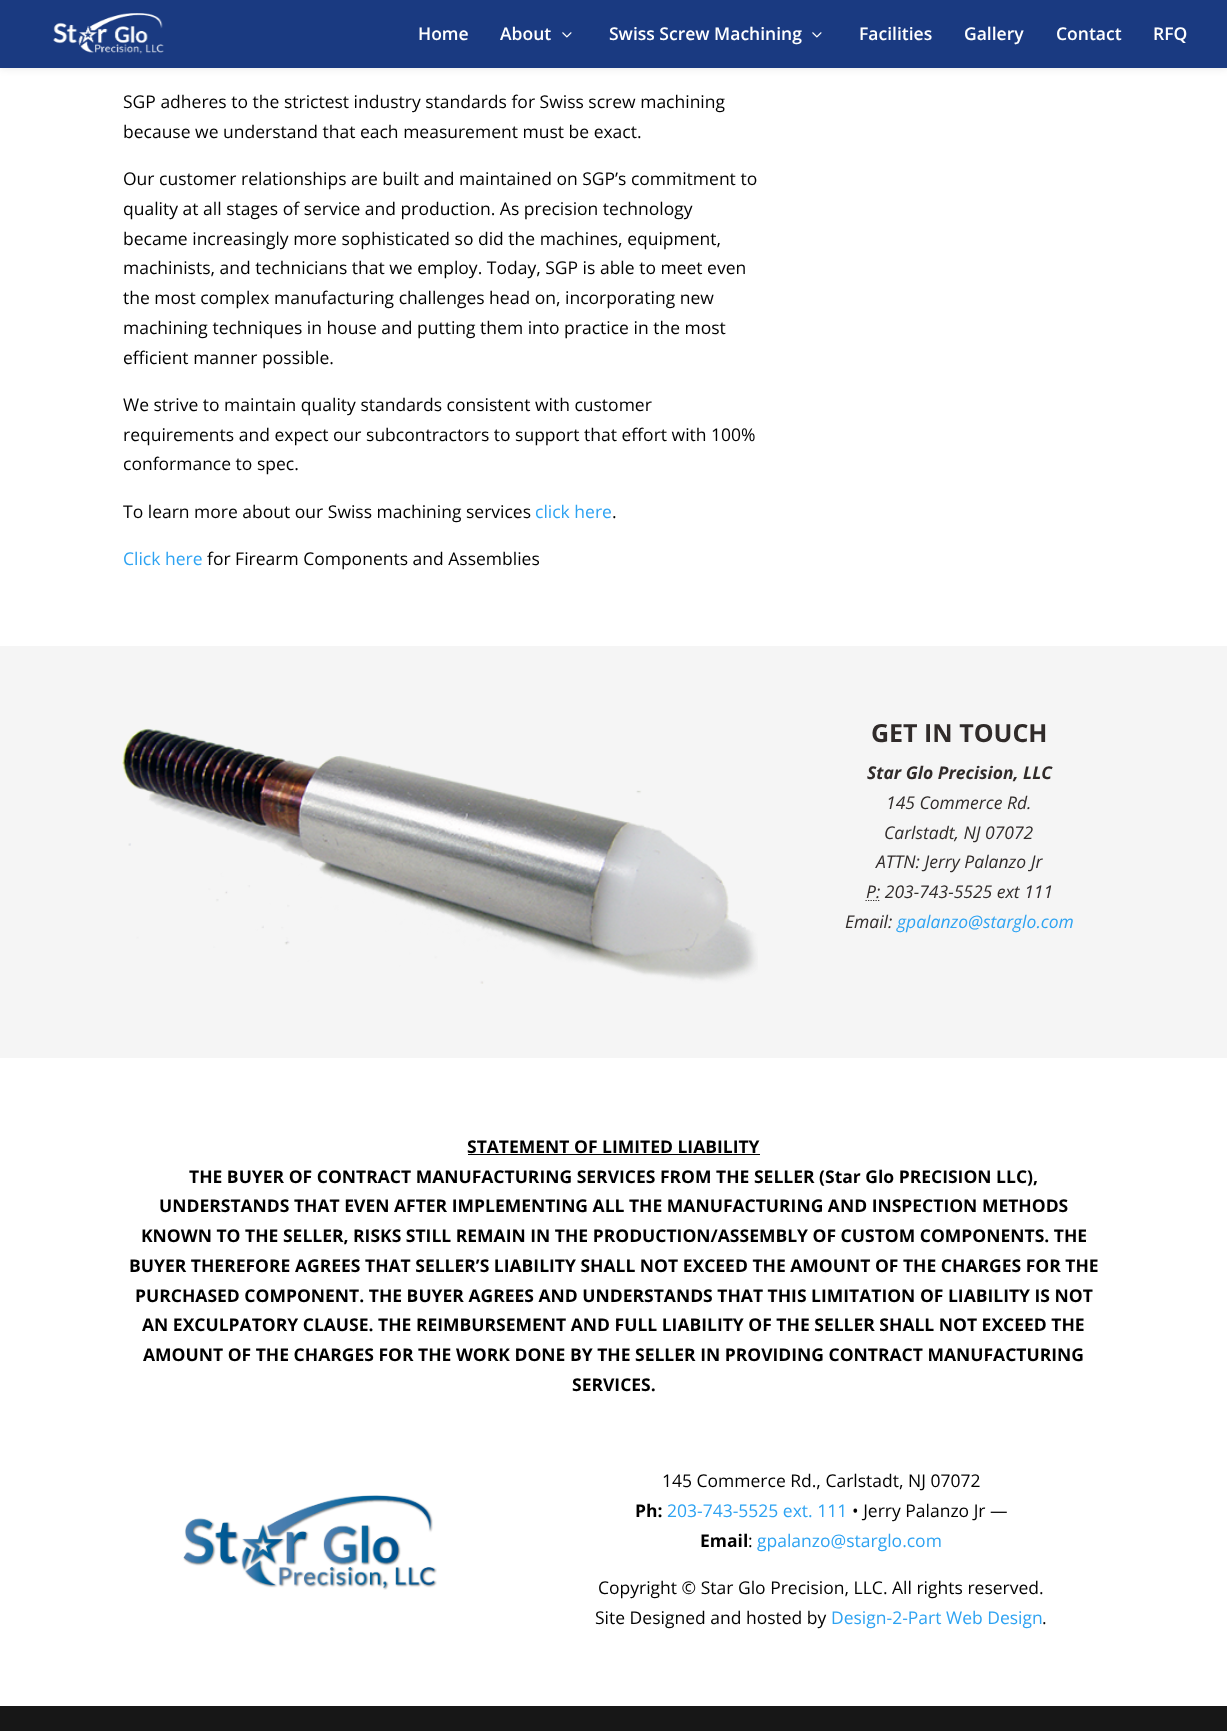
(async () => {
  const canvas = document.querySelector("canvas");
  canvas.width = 1227;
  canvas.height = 1731;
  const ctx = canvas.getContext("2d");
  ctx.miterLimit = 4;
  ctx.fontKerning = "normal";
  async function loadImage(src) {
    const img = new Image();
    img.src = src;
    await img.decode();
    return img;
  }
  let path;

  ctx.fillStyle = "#ffffff";
  ctx.fillRect(0, 0, 1227, 1731);
  ctx.fillStyle = "rgba(0, 0, 0, 0.1)";
  ctx.filter = "blur(4.5px)";
  ctx.beginPath();
  ctx.rect(0, 0, 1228, 68);
  ctx.fill();
  ctx.filter = "none";
  ctx.fillStyle = "#1a3a81";
  ctx.fillRect(0, 0, 1227, 68);
  ctx.drawImage(await loadImage("img/1.png"), 53, 13, 111, 41);
  ctx.drawImage(await loadImage("img/2.png"), 562, 32, 10, 6);
  ctx.drawImage(await loadImage("img/2.png"), 812, 32, 10, 6);
  ctx.fillStyle = "#f5f5f5";
  ctx.fillRect(0, 646, 1227, 412);
  ctx.drawImage(await loadImage("img/3.png"), 122, 728, 636, 256);
  path = new Path2D("M865.5 900.5H880");
  ctx.strokeStyle = "#302b2a";
  ctx.lineWidth = 1.2;
  ctx.setLineDash([1.25, 1.25]);
  ctx.stroke(path);
  ctx.fillStyle = "#000000";
  ctx.fillRect(468, 1154, 292, 1);
  ctx.drawImage(await loadImage("img/4.png"), 183, 1495, 254, 95);
  ctx.fillStyle = "#171717";
  ctx.fillRect(0, 1706, 1227, 25);
  ctx.font = "600 17.5px Open Sans";
  ctx.fillStyle = "#ffffff";
  for (const [text, x, y] of [
    ["Home", 418, 40],
    ["About", 500, 40],
    ["Swiss Screw Machining", 609, 40],
    ["Facilities", 859, 40],
    ["Gallery", 964, 40],
    ["Contact", 1056, 40],
    ["RFQ", 1153, 40],
  ]) {
    ctx.fillText(text, x, y);
  }
  ctx.font = "17.5px Open Sans";
  ctx.fillStyle = "#000000";
  for (const [text, x, y] of [
    ["SGP adheres to the strictest industry standards for Swiss screw machining", 123, 108],
    ["because we understand that each measurement must be exact.", 123, 138],
    ["Our customer relationships are built and maintained on SGP’s commitment to", 123, 185],
    ["quality at all stages of service and production. As precision technology", 123, 215],
    ["became increasingly more sophisticated so did the machines, equipment,", 123, 245],
    ["machinists, and technicians that we employ. Today, SGP is able to meet even", 123, 274],
    ["the most complex manufacturing challenges head on, incorporating new", 123, 304],
    ["machining techniques in house and putting them into practice in the most", 123, 334],
    ["efficient manner possible.", 123, 364],
    ["We strive to maintain quality standards consistent with customer", 123, 411],
    ["requirements and expect our subcontractors to support that effort with 100%", 123, 441],
    ["conformance to spec.", 123, 470],
    ["To learn more about our Swiss machining services", 123, 518],
  ]) {
    ctx.fillText(text, x, y);
  }
  ctx.fillStyle = "#2ea3f2";
  ctx.fillText("click here", 535, 518);
  ctx.fillStyle = "#000000";
  ctx.fillText(".", 612, 518);
  ctx.fillStyle = "#2ea3f2";
  ctx.fillText("Click here", 123, 565);
  ctx.fillStyle = "#000000";
  ctx.fillText("for Firearm Components and Assemblies", 207, 565);
  ctx.font = "bold 25px Open Sans";
  ctx.fillStyle = "#302b2a";
  ctx.fillText("GET IN TOUCH", 871, 742);
  ctx.font = "italic bold 17.5px Open Sans";
  ctx.fillText("Star Glo Precision, LLC", 867, 779);
  ctx.font = "italic 17.5px Open Sans";
  for (const [text, x, y] of [
    ["145 Commerce Rd.", 886, 809],
    ["Carlstadt, NJ 07072", 884, 839],
    ["ATTN: Jerry Palanzo Jr", 876, 868],
    ["P: 203-743-5525 ext 111", 866, 898],
    ["Email:", 845, 928],
  ]) {
    ctx.fillText(text, x, y);
  }
  ctx.fillStyle = "#2ea3f2";
  ctx.fillText("gpalanzo@starglo.com", 897, 928);
  ctx.font = "bold 17.5px Open Sans";
  ctx.fillStyle = "#000000";
  for (const [text, x, y] of [
    ["STATEMENT OF LIMITED LIABILITY", 467, 1153],
    ["THE BUYER OF CONTRACT MANUFACTURING SERVICES FROM THE SELLER (Star Glo PRECISION LLC),", 189, 1183],
    ["UNDERSTANDS THAT EVEN AFTER IMPLEMENTING ALL THE MANUFACTURING AND INSPECTION METHODS", 159, 1212],
    ["KNOWN TO THE SELLER, RISKS STILL REMAIN IN THE PRODUCTION/ASSEMBLY OF CUSTOM COMPONENTS. THE", 141, 1242],
    ["BUYER THEREFORE AGREES THAT SELLER’S LIABILITY SHALL NOT EXCEED THE AMOUNT OF THE CHARGES FOR THE", 129, 1272],
    ["PURCHASED COMPONENT. THE BUYER AGREES AND UNDERSTANDS THAT THIS LIMITATION OF LIABILITY IS NOT", 135, 1302],
    ["AN EXCULPATORY CLAUSE. THE REIMBURSEMENT AND FULL LIABILITY OF THE SELLER SHALL NOT EXCEED THE", 142, 1331],
    ["AMOUNT OF THE CHARGES FOR THE WORK DONE BY THE SELLER IN PROVIDING CONTRACT MANUFACTURING", 143, 1361],
    ["SERVICES.", 572, 1391],
  ]) {
    ctx.fillText(text, x, y);
  }
  ctx.font = "17.5px Open Sans";
  ctx.fillText("145 Commerce Rd., Carlstadt, NJ 07072", 662, 1487);
  ctx.font = "bold 17.5px Open Sans";
  ctx.fillText("Ph:", 635, 1517);
  ctx.font = "17.5px Open Sans";
  ctx.fillStyle = "#2ea3f2";
  ctx.fillText("203-743-5525 ext. 111", 667, 1517);
  ctx.fillStyle = "#000000";
  ctx.fillText("• Jerry Palanzo Jr —", 852, 1517);
  ctx.font = "bold 17.5px Open Sans";
  ctx.fillText("Email", 700, 1547);
  ctx.font = "17.5px Open Sans";
  ctx.fillText(":", 748, 1547);
  ctx.fillStyle = "#2ea3f2";
  ctx.fillText("gpalanzo@starglo.com", 757, 1547);
  ctx.fillStyle = "#000000";
  ctx.fillText("Copyright © Star Glo Precision, LLC. All rights reserved.", 598, 1594);
  ctx.fillText("Site Designed and hosted by", 595, 1624);
  ctx.fillStyle = "#2ea3f2";
  ctx.fillText("Design-2-Part Web Design", 831, 1624);
  ctx.fillStyle = "#000000";
  ctx.fillText(".", 1042, 1624);
})();
